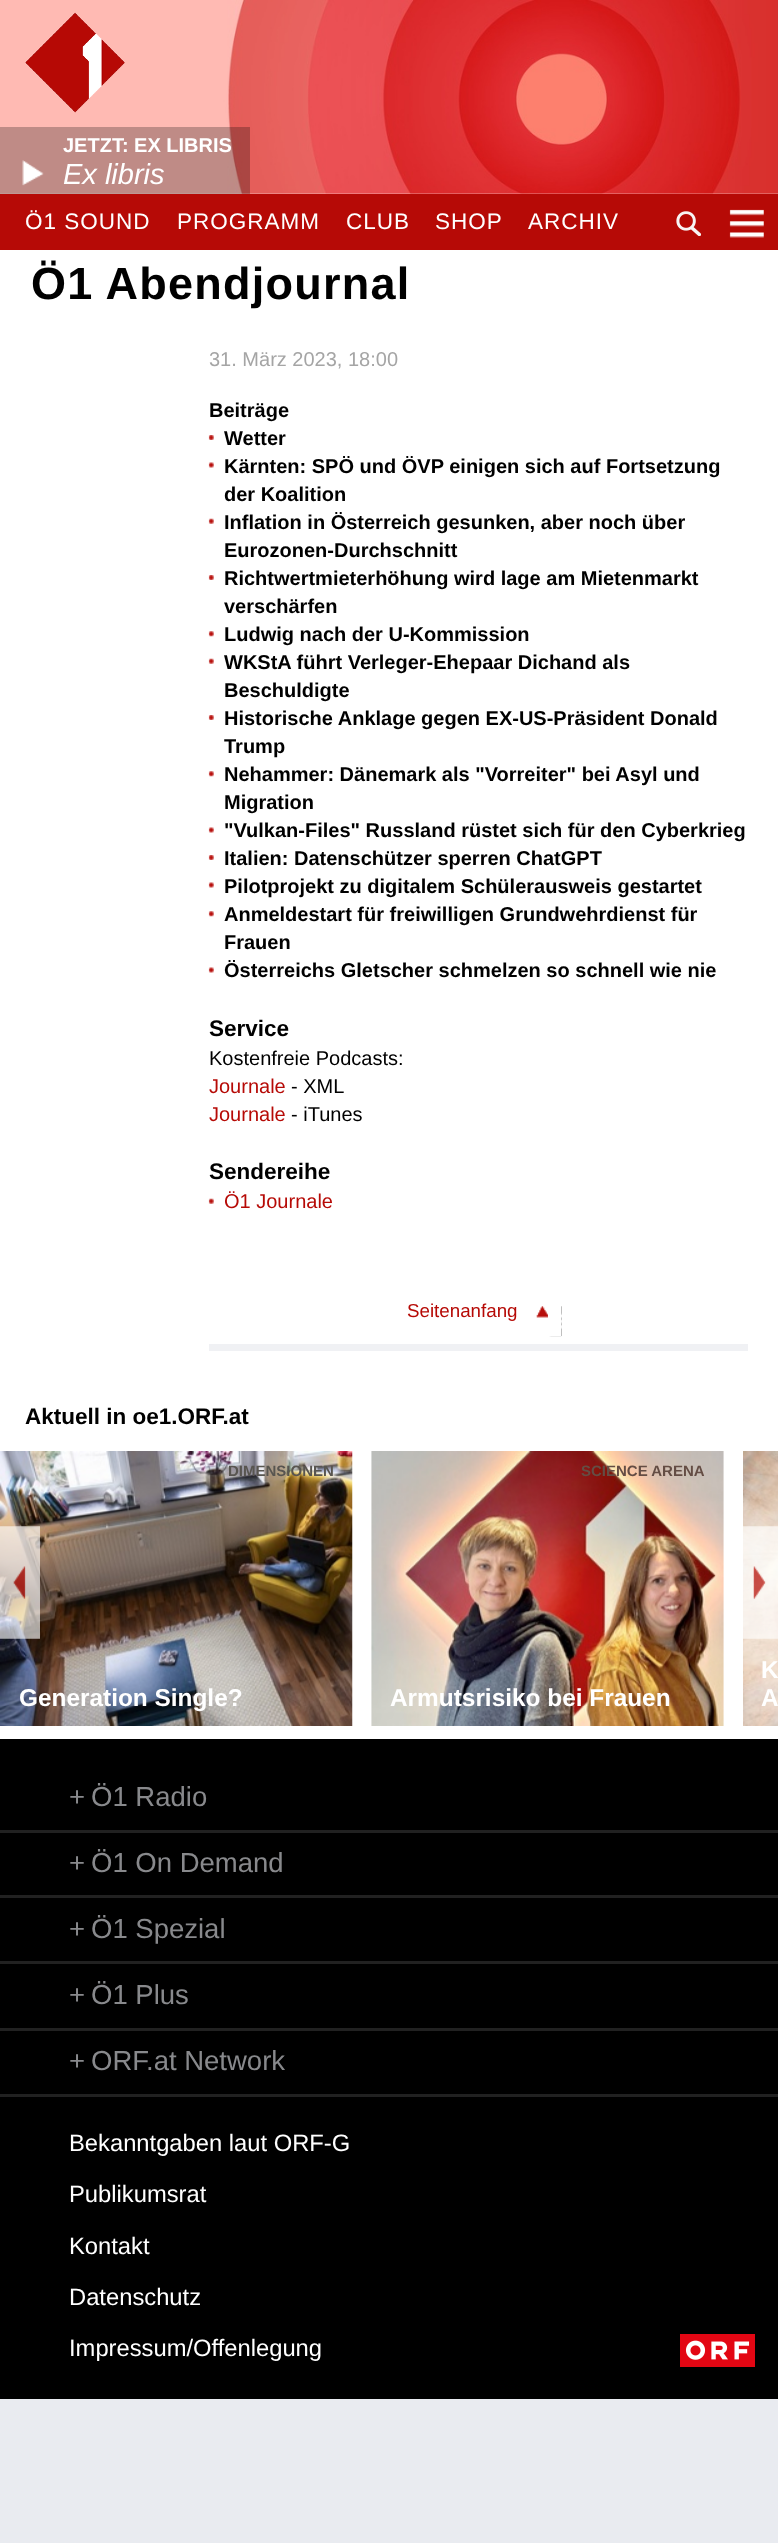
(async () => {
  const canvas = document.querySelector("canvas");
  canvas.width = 778;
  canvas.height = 2543;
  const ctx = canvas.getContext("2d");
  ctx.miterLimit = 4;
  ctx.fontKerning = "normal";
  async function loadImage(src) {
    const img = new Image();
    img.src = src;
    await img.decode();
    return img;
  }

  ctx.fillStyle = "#e9ebf0";
  ctx.fillRect(0, 0, 778, 2543);
  ctx.fillStyle = "#ffffff";
  ctx.fillRect(0, 193, 778, 1546);
  ctx.drawImage(await loadImage("img/2.png"), 0, 0, 778, 194);
  ctx.drawImage(await loadImage("img/1.png"), 25, 12, 100, 101);
  ctx.fillStyle = "rgba(0, 0, 0, 0.25)";
  ctx.fillRect(0, 127, 250, 67);
  ctx.drawImage(await loadImage("img/3.png"), 22, 160, 22, 26);
  ctx.fillStyle = "#b60a06";
  ctx.fillRect(0, 194, 778, 56);
  ctx.drawImage(await loadImage("img/4.png"), 676, 211, 25, 25);
  ctx.drawImage(await loadImage("img/5.png"), 729, 209, 35, 29);
  ctx.drawImage(await loadImage("img/6.png"), 208, 435, 6, 5);
  ctx.drawImage(await loadImage("img/7.png"), 208, 462, 6, 6);
  ctx.drawImage(await loadImage("img/8.png"), 208, 518, 6, 6);
  ctx.drawImage(await loadImage("img/6.png"), 208, 575, 6, 5);
  ctx.drawImage(await loadImage("img/9.png"), 208, 631, 6, 6);
  ctx.drawImage(await loadImage("img/8.png"), 208, 658, 6, 6);
  ctx.drawImage(await loadImage("img/6.png"), 208, 715, 6, 5);
  ctx.drawImage(await loadImage("img/9.png"), 208, 771, 6, 6);
  ctx.drawImage(await loadImage("img/7.png"), 208, 827, 6, 6);
  ctx.drawImage(await loadImage("img/6.png"), 208, 855, 6, 5);
  ctx.drawImage(await loadImage("img/7.png"), 208, 882, 6, 6);
  ctx.drawImage(await loadImage("img/9.png"), 208, 911, 6, 6);
  ctx.drawImage(await loadImage("img/7.png"), 208, 967, 6, 6);
  ctx.drawImage(await loadImage("img/8.png"), 208, 1198, 6, 6);
  ctx.drawImage(await loadImage("img/10.png"), 536, 1306, 26, 31);
  ctx.strokeStyle = "#ffffff";
  ctx.lineWidth = 13;
  ctx.strokeRect(401.5, 1291.5, 153, 38);
  ctx.fillStyle = "#f0f1f4";
  ctx.fillRect(209, 1344, 539, 7);
  ctx.drawImage(await loadImage("img/11.png"), 0, 1451, 353, 275);
  ctx.drawImage(await loadImage("img/12.png"), 371, 1451, 353, 275);
  ctx.drawImage(await loadImage("img/13.png"), 743, 1451, 35, 275);
  ctx.drawImage(await loadImage("img/14.png"), 0, 1526, 40, 113);
  ctx.drawImage(await loadImage("img/15.png"), 743, 1526, 35, 113);
  for (const [x, y, w, h, color] of [
    [0, 1739, 778, 660, "#000000"],
    [0, 1830, 778, 3, "#212121"],
    [0, 1895, 778, 3, "#212121"],
    [0, 1961, 778, 3, "#212121"],
    [0, 2028, 778, 3, "#212121"],
    [0, 2094, 778, 3, "#212121"],
  ]) {
    ctx.fillStyle = color;
    ctx.fillRect(x, y, w, h);
  }
  ctx.drawImage(await loadImage("img/16.png"), 680, 2334, 75, 33);
  ctx.font = "bold 20px Liberation Sans";
  ctx.fillStyle = "#ffffff";
  ctx.fillText("JETZT: EX LIBRIS", 63, 152);
  ctx.font = "italic 29px Liberation Sans";
  ctx.fillText("Ex libris", 63, 184);
  ctx.letterSpacing = "1px";
  ctx.font = "22.5px Liberation Sans";
  for (const [text, x, y] of [
    ["Ö1 SOUND", 25, 229],
    ["PROGRAMM", 177, 229],
    ["CLUB", 346, 229],
    ["SHOP", 435, 229],
    ["ARCHIV", 528, 229],
  ]) {
    ctx.fillText(text, x, y);
  }
  ctx.letterSpacing = "1.25px";
  ctx.font = "bold 45px Liberation Sans";
  ctx.fillStyle = "#000000";
  ctx.fillText("Ö1 Abendjournal", 31, 299);
  ctx.letterSpacing = "0px";
  ctx.font = "20px Liberation Sans";
  ctx.fillStyle = "#a5a5a5";
  ctx.fillText("31. März 2023, 18:00", 209, 366);
  ctx.font = "bold 20px Liberation Sans";
  ctx.fillStyle = "#000000";
  for (const [text, x, y] of [
    ["Beiträge", 209, 417],
    ["Wetter", 224, 445],
    ["Kärnten: SPÖ und ÖVP einigen sich auf Fortsetzung", 224, 473],
    ["der Koalition", 224, 501],
    ["Inflation in Österreich gesunken, aber noch über", 224, 529],
    ["Eurozonen-Durchschnitt", 224, 557],
    ["Richtwertmieterhöhung wird lage am Mietenmarkt", 224, 585],
    ["verschärfen", 224, 613],
    ["Ludwig nach der U-Kommission", 224, 641],
    ["WKStA führt Verleger-Ehepaar Dichand als", 224, 669],
    ["Beschuldigte", 224, 697],
    ["Historische Anklage gegen EX-US-Präsident Donald", 224, 725],
    ["Trump", 224, 753],
    ["Nehammer: Dänemark als \"Vorreiter\" bei Asyl und", 224, 781],
    ["Migration", 224, 809],
    ["\"Vulkan-Files\" Russland rüstet sich für den Cyberkrieg", 224, 837],
    ["Italien: Datenschützer sperren ChatGPT", 224, 865],
    ["Pilotprojekt zu digitalem Schülerausweis gestartet", 224, 893],
    ["Anmeldestart für freiwilligen Grundwehrdienst für", 224, 921],
    ["Frauen", 224, 949],
    ["Österreichs Gletscher schmelzen so schnell wie nie", 224, 977],
  ]) {
    ctx.fillText(text, x, y);
  }
  ctx.font = "bold 22.5px Liberation Sans";
  ctx.fillText("Service", 209, 1036);
  ctx.font = "20px Liberation Sans";
  ctx.fillText("Kostenfreie Podcasts:", 209, 1065);
  ctx.fillStyle = "#b60a06";
  ctx.fillText("Journale", 209, 1093);
  ctx.fillStyle = "#000000";
  ctx.fillText("- XML", 291, 1093);
  ctx.fillStyle = "#b60a06";
  ctx.fillText("Journale", 209, 1121);
  ctx.fillStyle = "#000000";
  ctx.fillText("- iTunes", 291, 1121);
  ctx.font = "bold 22.5px Liberation Sans";
  ctx.fillText("Sendereihe", 209, 1179);
  ctx.font = "20px Liberation Sans";
  ctx.fillStyle = "#b60a06";
  ctx.fillText("Ö1 Journale", 224, 1208);
  ctx.font = "18.75px Liberation Sans";
  ctx.fillText("Seitenanfang", 407, 1317);
  ctx.font = "bold 22.5px Liberation Sans";
  ctx.fillStyle = "#000000";
  ctx.fillText("Aktuell in oe1.ORF.at", 25, 1424);
  ctx.font = "bold 15px Liberation Sans";
  ctx.fillStyle = "#585550";
  ctx.fillText("DIMENSIONEN", 228, 1476);
  ctx.font = "bold 24.4px Liberation Sans";
  ctx.fillStyle = "#ffffff";
  ctx.fillText("Generation Single?", 19, 1706);
  ctx.font = "bold 15px Liberation Sans";
  ctx.fillStyle = "#644d44";
  ctx.fillText("SCIENCE ARENA", 581, 1476);
  ctx.font = "bold 24.4px Liberation Sans";
  ctx.fillStyle = "#ffffff";
  for (const [text, x, y] of [
    ["Armutsrisiko bei Frauen", 390, 1706],
    ["K", 761, 1678],
    ["A", 761, 1706],
  ]) {
    ctx.fillText(text, x, y);
  }
  ctx.font = "27.5px Liberation Sans";
  ctx.fillStyle = "#88898c";
  for (const [text, x, y] of [
    ["+", 69, 1806],
    ["Ö1 Radio", 91, 1806],
    ["+", 69, 1872],
    ["Ö1 On Demand", 91, 1872],
    ["+", 69, 1938],
    ["Ö1 Spezial", 91, 1938],
    ["+", 69, 2004],
    ["Ö1 Plus", 91, 2004],
    ["+", 69, 2070],
    ["ORF.at Network", 91, 2070],
  ]) {
    ctx.fillText(text, x, y);
  }
  ctx.font = "23.75px Liberation Sans";
  ctx.fillStyle = "#ffffff";
  for (const [text, x, y] of [
    ["Bekanntgaben laut ORF-G", 69, 2151],
    ["Publikumsrat", 69, 2202],
    ["Kontakt", 69, 2254],
    ["Datenschutz", 69, 2305],
    ["Impressum/Offenlegung", 69, 2356],
  ]) {
    ctx.fillText(text, x, y);
  }
})();
